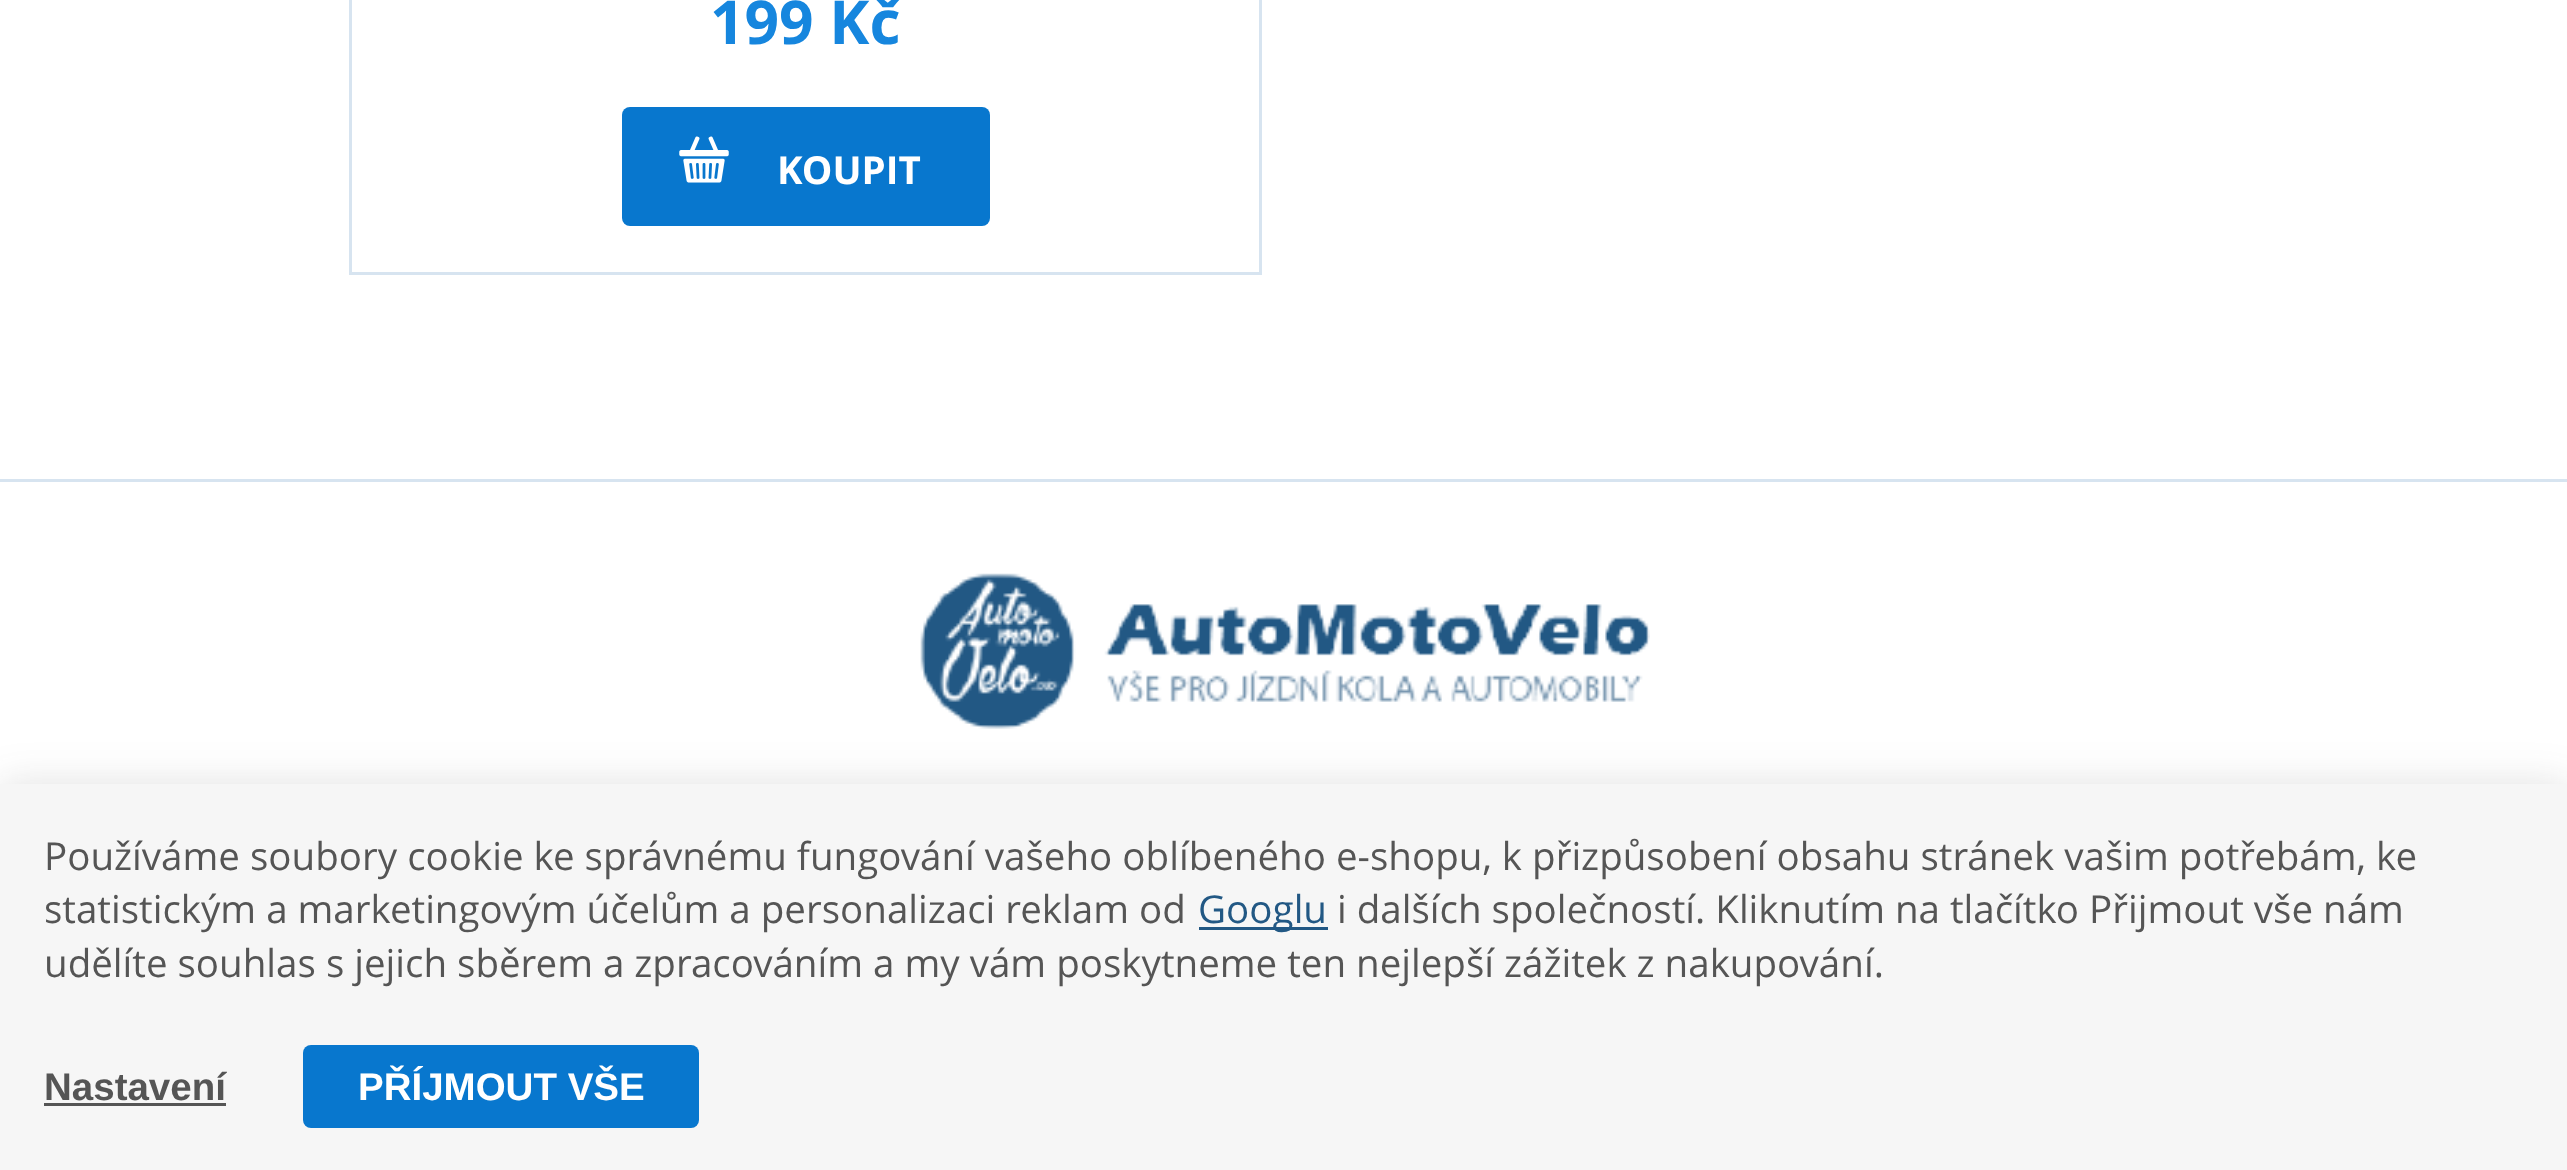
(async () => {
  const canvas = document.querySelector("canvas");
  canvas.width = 2567;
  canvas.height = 1170;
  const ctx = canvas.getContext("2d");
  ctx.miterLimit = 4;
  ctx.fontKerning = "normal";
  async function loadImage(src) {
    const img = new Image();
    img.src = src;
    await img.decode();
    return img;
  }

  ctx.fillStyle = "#ffffff";
  ctx.fillRect(0, 0, 2567, 1170);
  ctx.strokeStyle = "#d7e4f0";
  ctx.lineWidth = 3;
  ctx.strokeRect(350.5, -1.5, 910, 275);
  ctx.fillStyle = "#0877ce";
  ctx.beginPath();
  ctx.roundRect(622, 107, 368, 119, 8);
  ctx.fill();
  ctx.drawImage(await loadImage("img/1.png"), 679, 136, 50, 47);
  ctx.fillStyle = "#d7e4f0";
  ctx.fillRect(0, 479, 2567, 3);
  ctx.drawImage(await loadImage("img/2.png"), 920, 573, 730, 156);
  ctx.fillStyle = "rgba(55, 55, 55, 0.15)";
  ctx.filter = "blur(20.5px)";
  ctx.beginPath();
  ctx.rect(0, 784, 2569, 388);
  ctx.fill();
  ctx.filter = "none";
  for (const [x, y, w, h, color] of [
    [0, 784, 2567, 386, "#f6f6f6"],
    [1199, 927, 129, 3, "#225884"],
    [44, 1103, 182, 3, "#555555"],
  ]) {
    ctx.fillStyle = color;
    ctx.fillRect(x, y, w, h);
  }
  ctx.fillStyle = "#0877ce";
  ctx.beginPath();
  ctx.roundRect(303, 1045, 396, 83, 8);
  ctx.fill();
  ctx.font = "bold 60.5px Open Sans";
  ctx.fillStyle = "#1686de";
  ctx.fillText("199 Kč", 710, 44);
  ctx.font = "bold 38.5px Open Sans";
  ctx.fillStyle = "#ffffff";
  ctx.fillText("KOUPIT", 777, 184);
  ctx.font = "38.5px Open Sans";
  ctx.fillStyle = "#555555";
  ctx.fillText("Používáme soubory cookie ke správnému fungování vašeho oblíbeného e-shopu, k přizpůsobení obsahu stránek vašim potřebám, ke", 44, 870);
  ctx.fillText("statistickým a marketingovým účelům a personalizaci reklam od", 44, 923);
  ctx.fillStyle = "#225884";
  ctx.fillText("Googlu", 1198, 923);
  ctx.fillStyle = "#555555";
  ctx.fillText("i dalších společností. Kliknutím na tlačítko Přijmout vše nám", 1337, 923);
  ctx.fillText("udělíte souhlas s jejich sběrem a zpracováním a my vám poskytneme ten nejlepší zážitek z nakupování.", 44, 977);
  ctx.font = "bold 38.5px Liberation Sans";
  ctx.fillText("Nastavení", 44, 1100);
  ctx.fillStyle = "#ffffff";
  ctx.fillText("PŘÍJMOUT VŠE", 358, 1100);
})();
